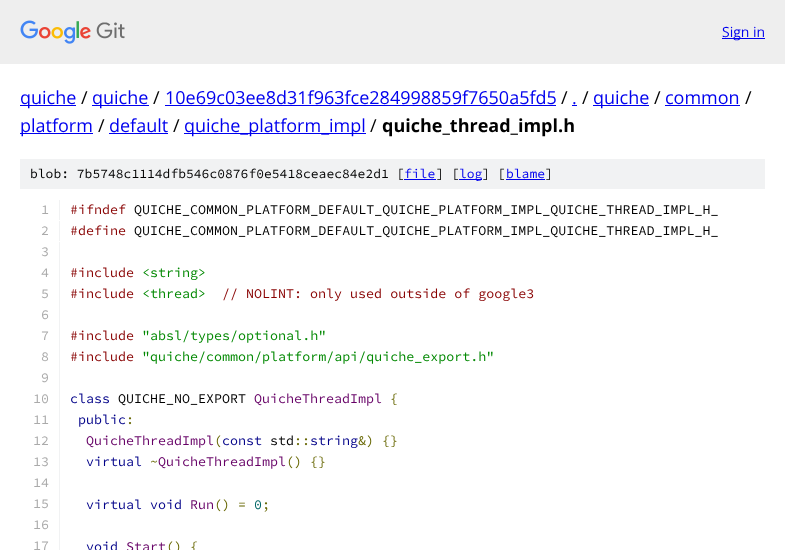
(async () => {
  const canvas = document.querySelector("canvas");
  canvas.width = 785;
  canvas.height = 550;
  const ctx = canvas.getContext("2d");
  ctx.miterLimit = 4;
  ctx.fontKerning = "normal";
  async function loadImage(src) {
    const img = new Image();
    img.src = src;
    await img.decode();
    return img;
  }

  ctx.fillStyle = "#ffffff";
  ctx.fillRect(0, 0, 785, 550);
  ctx.fillStyle = "#eeeeee";
  ctx.fillRect(0, 0, 785, 64);
  ctx.drawImage(await loadImage("img/1.png"), 20, 20, 105, 24);
  for (const [x, y, w, h, color] of [
    [722, 38, 43, 1, "#0000ee"],
    [20, 105, 56, 1, "#0000ee"],
    [92, 105, 57, 1, "#0000ee"],
    [165, 105, 391, 1, "#0000ee"],
    [572, 105, 5, 1, "#0000ee"],
    [593, 105, 56, 1, "#0000ee"],
    [665, 105, 75, 1, "#0000ee"],
    [20, 133, 73, 1, "#0000ee"],
    [109, 133, 59, 1, "#0000ee"],
    [184, 133, 182, 1, "#0000ee"],
    [20, 159, 745, 30, "#f1f2f3"],
    [404, 179, 32, 1, "#0000ee"],
    [459, 179, 23, 1, "#0000ee"],
    [506, 179, 39, 1, "#0000ee"],
    [59, 200, 1, 20, "#f1f2f3"],
    [59, 221, 1, 20, "#f1f2f3"],
    [59, 242, 1, 308, "#f1f2f3"],
  ]) {
    ctx.fillStyle = color;
    ctx.fillRect(x, y, w, h);
  }
  ctx.font = "14px Open Sans";
  ctx.fillStyle = "#0000ee";
  ctx.fillText("Sign in", 722, 37);
  ctx.font = "18px Open Sans";
  ctx.fillText("quiche", 20, 104);
  ctx.fillStyle = "#000000";
  ctx.fillText("/", 81, 104);
  ctx.fillStyle = "#0000ee";
  ctx.fillText("quiche", 92, 104);
  ctx.fillStyle = "#000000";
  ctx.fillText("/", 153, 104);
  ctx.fillStyle = "#0000ee";
  ctx.fillText("10e69c03ee8d31f963fce284998859f7650a5fd5", 165, 104);
  ctx.fillStyle = "#000000";
  ctx.fillText("/", 561, 104);
  ctx.fillStyle = "#0000ee";
  ctx.fillText(".", 572, 104);
  ctx.fillStyle = "#000000";
  ctx.fillText("/", 582, 104);
  ctx.fillStyle = "#0000ee";
  ctx.fillText("quiche", 593, 104);
  ctx.fillStyle = "#000000";
  ctx.fillText("/", 654, 104);
  ctx.fillStyle = "#0000ee";
  ctx.fillText("common", 665, 104);
  ctx.fillStyle = "#000000";
  ctx.fillText("/", 745, 104);
  ctx.fillStyle = "#0000ee";
  ctx.fillText("platform", 20, 132);
  ctx.fillStyle = "#000000";
  ctx.fillText("/", 98, 132);
  ctx.fillStyle = "#0000ee";
  ctx.fillText("default", 109, 132);
  ctx.fillStyle = "#000000";
  ctx.fillText("/", 173, 132);
  ctx.fillStyle = "#0000ee";
  ctx.fillText("quiche_platform_impl", 184, 132);
  ctx.fillStyle = "#000000";
  ctx.fillText("/", 370, 132);
  ctx.font = "bold 18px Open Sans";
  ctx.fillText("quiche_thread_impl.h", 382, 132);
  ctx.font = "200 13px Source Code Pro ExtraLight";
  ctx.fillText("blob: 7b5748c1114dfb546c0876f0e5418ceaec84e2d1 [", 30, 178);
  ctx.fillStyle = "#0000ee";
  ctx.fillText("file", 404, 178);
  ctx.fillStyle = "#000000";
  ctx.fillText("] [", 436, 178);
  ctx.fillStyle = "#0000ee";
  ctx.fillText("log", 459, 178);
  ctx.fillStyle = "#000000";
  ctx.fillText("] [", 482, 178);
  ctx.fillStyle = "#0000ee";
  ctx.fillText("blame", 506, 178);
  ctx.fillStyle = "#000000";
  ctx.fillText("]", 545, 178);
  ctx.font = "200 13.35px Source Code Pro ExtraLight";
  ctx.fillStyle = "#aaaaaa";
  ctx.fillText("1", 41, 214);
  ctx.fillStyle = "#880000";
  ctx.fillText("#ifndef", 70, 214);
  ctx.fillStyle = "#000000";
  ctx.fillText("QUICHE_COMMON_PLATFORM_DEFAULT_QUICHE_PLATFORM_IMPL_QUICHE_THREAD_IMPL_H_", 134, 214);
  ctx.fillStyle = "#aaaaaa";
  ctx.fillText("2", 41, 235);
  ctx.fillStyle = "#880000";
  ctx.fillText("#define", 70, 235);
  ctx.fillStyle = "#000000";
  ctx.fillText("QUICHE_COMMON_PLATFORM_DEFAULT_QUICHE_PLATFORM_IMPL_QUICHE_THREAD_IMPL_H_", 134, 235);
  ctx.fillStyle = "#aaaaaa";
  ctx.fillText("3", 41, 256);
  ctx.fillText("4", 41, 277);
  ctx.fillStyle = "#880000";
  ctx.fillText("#include", 70, 277);
  ctx.fillStyle = "#008800";
  ctx.fillText("<string>", 142, 277);
  ctx.fillStyle = "#aaaaaa";
  ctx.fillText("5", 41, 298);
  ctx.fillStyle = "#880000";
  ctx.fillText("#include", 70, 298);
  ctx.fillStyle = "#008800";
  ctx.fillText("<thread>", 142, 298);
  ctx.fillStyle = "#880000";
  ctx.fillText("// NOLINT: only used outside of google3", 222, 298);
  ctx.fillStyle = "#aaaaaa";
  ctx.fillText("6", 41, 319);
  ctx.fillText("7", 41, 340);
  ctx.fillStyle = "#880000";
  ctx.fillText("#include", 70, 340);
  ctx.fillStyle = "#008800";
  ctx.fillText("\"absl/types/optional.h\"", 142, 340);
  ctx.fillStyle = "#aaaaaa";
  ctx.fillText("8", 41, 361);
  ctx.fillStyle = "#880000";
  ctx.fillText("#include", 70, 361);
  ctx.fillStyle = "#008800";
  ctx.fillText("\"quiche/common/platform/api/quiche_export.h\"", 142, 361);
  ctx.fillStyle = "#aaaaaa";
  ctx.fillText("9", 41, 382);
  ctx.fillText("10", 33, 403);
  ctx.fillStyle = "#000088";
  ctx.fillText("class", 70, 403);
  ctx.fillStyle = "#000000";
  ctx.fillText("QUICHE_NO_EXPORT", 118, 403);
  ctx.fillStyle = "#660066";
  ctx.fillText("QuicheThreadImpl", 254, 403);
  ctx.fillStyle = "#666600";
  ctx.fillText("{", 390, 403);
  ctx.fillStyle = "#aaaaaa";
  ctx.fillText("11", 33, 424);
  ctx.fillStyle = "#000088";
  ctx.fillText("public", 78, 424);
  ctx.fillStyle = "#666600";
  ctx.fillText(":", 126, 424);
  ctx.fillStyle = "#aaaaaa";
  ctx.fillText("12", 33, 445);
  ctx.fillStyle = "#660066";
  ctx.fillText("QuicheThreadImpl", 86, 445);
  ctx.fillStyle = "#666600";
  ctx.fillText("(", 214, 445);
  ctx.fillStyle = "#000088";
  ctx.fillText("const", 222, 445);
  ctx.fillStyle = "#000000";
  ctx.fillText("std", 270, 445);
  ctx.fillStyle = "#666600";
  ctx.fillText("::", 294, 445);
  ctx.fillStyle = "#000088";
  ctx.fillText("string", 310, 445);
  ctx.fillStyle = "#666600";
  ctx.fillText("&) {}", 358, 445);
  ctx.fillStyle = "#aaaaaa";
  ctx.fillText("13", 33, 466);
  ctx.fillStyle = "#000088";
  ctx.fillText("virtual", 86, 466);
  ctx.fillStyle = "#666600";
  ctx.fillText("~", 150, 466);
  ctx.fillStyle = "#660066";
  ctx.fillText("QuicheThreadImpl", 158, 466);
  ctx.fillStyle = "#666600";
  ctx.fillText("() {}", 286, 466);
  ctx.fillStyle = "#aaaaaa";
  ctx.fillText("14", 33, 487);
  ctx.fillText("15", 33, 508);
  ctx.fillStyle = "#000088";
  ctx.fillText("virtual void", 86, 509);
  ctx.fillStyle = "#660066";
  ctx.fillText("Run", 190, 509);
  ctx.fillStyle = "#666600";
  ctx.fillText("() =", 214, 509);
  ctx.fillStyle = "#006666";
  ctx.fillText("0", 254, 509);
  ctx.fillStyle = "#666600";
  ctx.fillText(";", 262, 509);
  ctx.fillStyle = "#aaaaaa";
  ctx.fillText("16", 33, 529);
  ctx.fillText("17", 33, 550);
  ctx.fillStyle = "#000088";
  ctx.fillText("void", 86, 551);
  ctx.fillStyle = "#660066";
  ctx.fillText("Start", 126, 551);
  ctx.fillStyle = "#666600";
  ctx.fillText("() {", 166, 551);
})();
